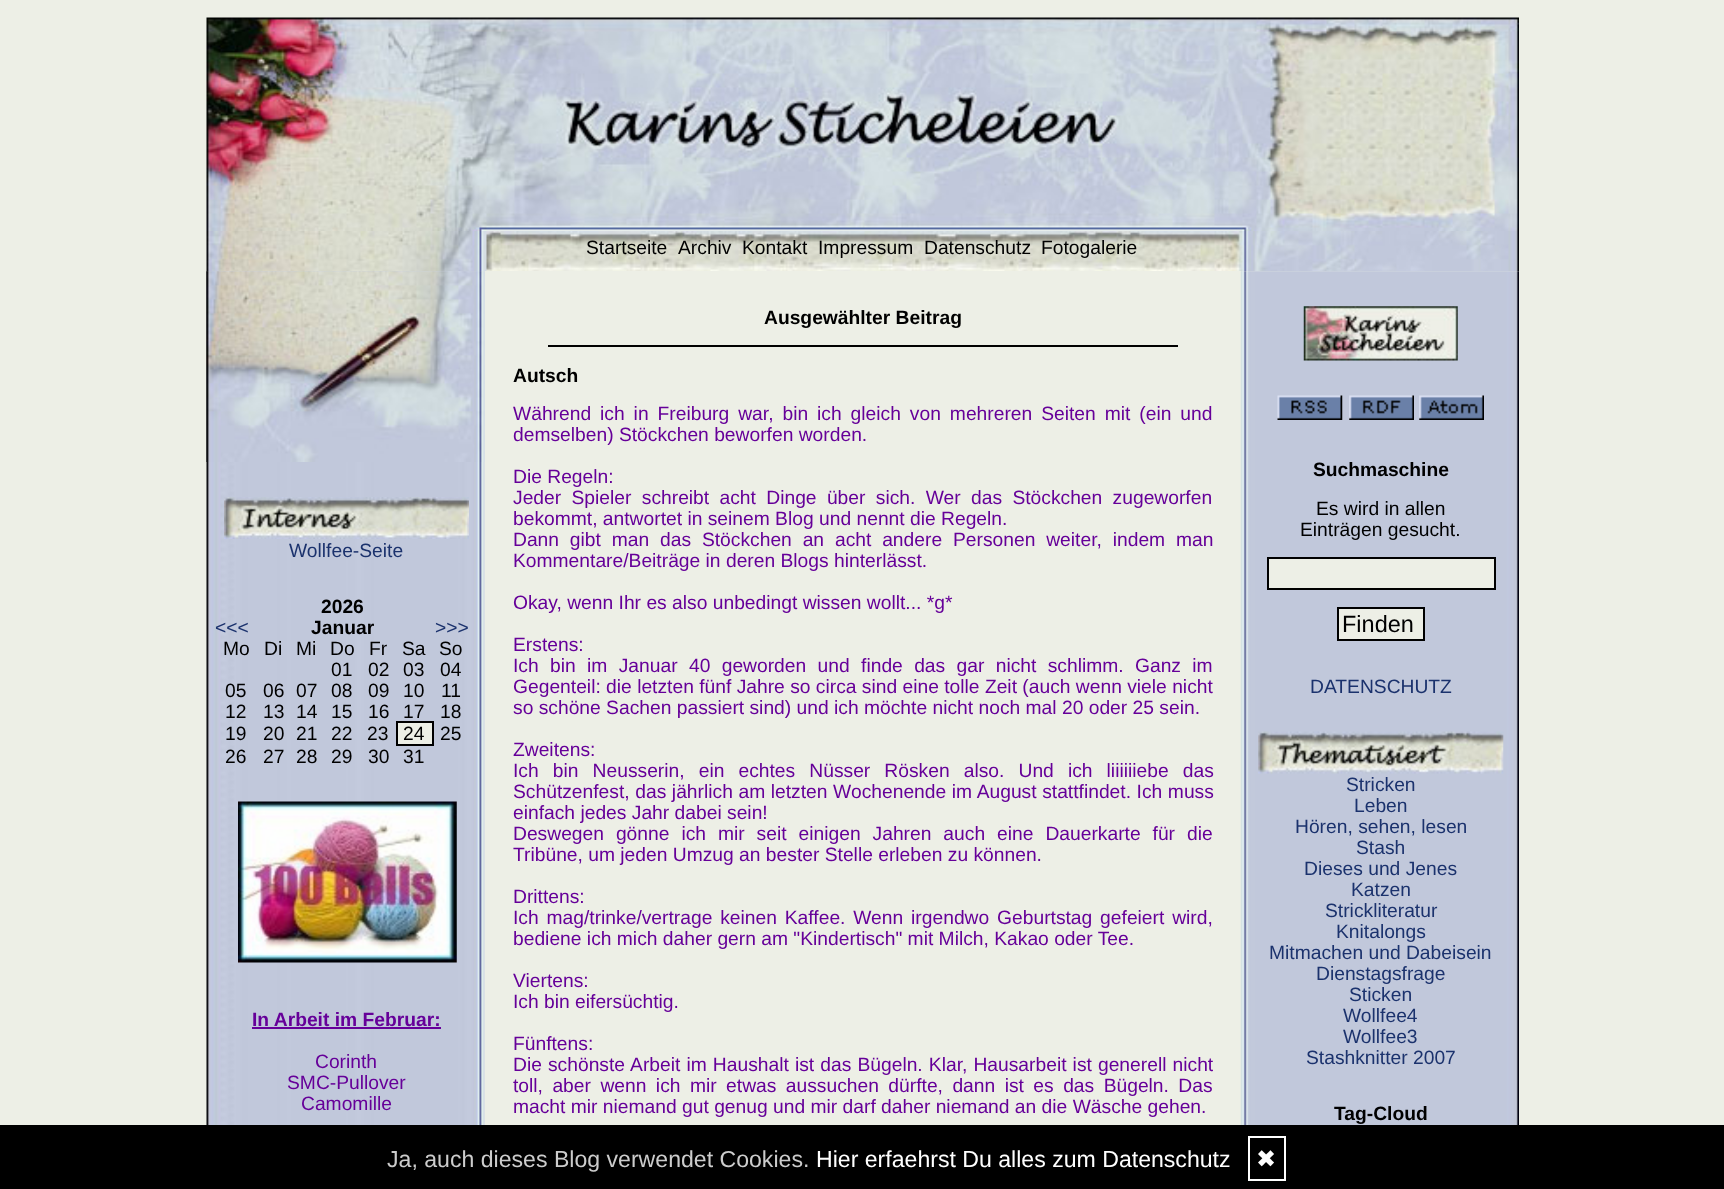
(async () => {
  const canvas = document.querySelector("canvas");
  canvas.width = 1724;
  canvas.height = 1189;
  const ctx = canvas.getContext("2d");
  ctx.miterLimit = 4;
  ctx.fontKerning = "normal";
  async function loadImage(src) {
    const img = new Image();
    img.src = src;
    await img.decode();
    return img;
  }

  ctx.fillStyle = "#edefe6";
  ctx.fillRect(0, 0, 1724, 1189);
  ctx.drawImage(await loadImage("img/1.png"), 206, 17, 1313, 214);
  ctx.drawImage(await loadImage("img/2.png"), 206, 231, 1313, 41);
  ctx.drawImage(await loadImage("img/3.png"), 206, 271, 279, 854);
  ctx.drawImage(await loadImage("img/4.png"), 206, 271, 279, 191);
  ctx.drawImage(await loadImage("img/5.png"), 224, 497, 245, 42);
  for (const [x, y, w, h, color] of [
    [398, 723, 34, 21, "#edefe6"],
    [396, 721, 38, 2, "#000000"],
    [432, 721, 2, 25, "#000000"],
    [396, 744, 38, 2, "#000000"],
    [396, 721, 2, 25, "#000000"],
  ]) {
    ctx.fillStyle = color;
    ctx.fillRect(x, y, w, h);
  }
  ctx.drawImage(await loadImage("img/6.png"), 238, 801, 219, 162);
  for (const [x, y, w, h, color] of [
    [252, 1027, 189, 2, "#660099"],
    [485, 271, 756, 1, "#edefe6"],
    [548, 345, 630, 2, "#000000"],
  ]) {
    ctx.fillStyle = color;
    ctx.fillRect(x, y, w, h);
  }
  ctx.drawImage(await loadImage("img/7.png"), 1240, 271, 279, 854);
  ctx.drawImage(await loadImage("img/8.png"), 1303, 306, 155, 55);
  ctx.drawImage(await loadImage("img/9.png"), 1277, 395, 66, 25);
  ctx.drawImage(await loadImage("img/10.png"), 1349, 395, 65, 25);
  ctx.drawImage(await loadImage("img/11.png"), 1419, 395, 65, 25);
  ctx.fillStyle = "#edefe6";
  ctx.beginPath();
  ctx.rect(1268, 558, 227, 31);
  ctx.fill();
  ctx.strokeStyle = "#000000";
  ctx.lineWidth = 2;
  ctx.stroke();
  ctx.beginPath();
  ctx.rect(1338, 608, 86, 32);
  ctx.fill();
  ctx.stroke();
  ctx.drawImage(await loadImage("img/12.png"), 1258, 731, 246, 43);
  ctx.fillStyle = "#000000";
  ctx.fillRect(0, 1127, 1724, 62);
  ctx.strokeRect(-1, 1126, 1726, 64);
  ctx.strokeStyle = "#ffffff";
  ctx.strokeRect(1249, 1137, 36, 43);
  ctx.font = "19.25px Liberation Sans";
  for (const [text, x, y] of [
    ["Startseite", 586, 254],
    ["Archiv", 678, 254],
    ["Kontakt", 742, 254],
    ["Impressum", 818, 254],
    ["Datenschutz", 924, 254],
    ["Fotogalerie", 1041, 254],
  ]) {
    ctx.fillText(text, x, y);
  }
  ctx.fillStyle = "#1b326d";
  ctx.fillText("Wollfee-Seite", 289, 557);
  ctx.font = "bold 19.25px Liberation Sans";
  ctx.fillStyle = "#000000";
  ctx.fillText("2026", 321, 613);
  ctx.font = "19.25px Liberation Sans";
  ctx.fillStyle = "#1b326d";
  ctx.fillText("<<<", 215, 634);
  ctx.font = "bold 19.25px Liberation Sans";
  ctx.fillStyle = "#000000";
  ctx.fillText("Januar", 311, 634);
  ctx.font = "19.25px Liberation Sans";
  ctx.fillStyle = "#1b326d";
  ctx.fillText(">>>", 435, 634);
  ctx.fillStyle = "#000000";
  for (const [text, x, y] of [
    ["Mo", 223, 655],
    ["Di", 264, 655],
    ["Mi", 296, 655],
    ["Do", 330, 655],
    ["Fr", 369, 655],
    ["Sa", 402, 655],
    ["So", 439, 655],
    ["01", 331, 676],
    ["02", 368, 676],
    ["03", 403, 676],
    ["04", 440, 676],
    ["05", 225, 697],
    ["06", 263, 697],
    ["07", 296, 697],
    ["08", 331, 697],
    ["09", 368, 697],
    ["10", 403, 697],
    ["11", 441, 697],
    ["12", 225, 718],
    ["13", 263, 718],
    ["14", 296, 718],
    ["15", 331, 718],
    ["16", 368, 718],
    ["17", 403, 718],
    ["18", 440, 718],
    ["19", 225, 740],
    ["20", 263, 740],
    ["21", 296, 740],
    ["22", 331, 740],
    ["23", 367, 740],
    ["24", 403, 740],
    ["25", 440, 740],
    ["26", 225, 763],
    ["27", 263, 763],
    ["28", 296, 763],
    ["29", 331, 763],
    ["30", 368, 763],
    ["31", 403, 763],
  ]) {
    ctx.fillText(text, x, y);
  }
  ctx.font = "bold 19.25px Liberation Sans";
  ctx.fillStyle = "#660099";
  ctx.fillText("In Arbeit im Februar:", 252, 1026);
  ctx.font = "19.25px Liberation Sans";
  for (const [text, x, y] of [
    ["Corinth", 315, 1068],
    ["SMC-Pullover", 287, 1089],
    ["Camomille", 301, 1110],
  ]) {
    ctx.fillText(text, x, y);
  }
  ctx.font = "bold 19.25px Liberation Sans";
  ctx.fillStyle = "#000000";
  ctx.fillText("Ausgewählter Beitrag", 764, 324);
  ctx.fillText("Autsch", 513, 382);
  ctx.wordSpacing = "3.6px";
  ctx.font = "19.25px Liberation Sans";
  ctx.fillStyle = "#660099";
  ctx.fillText("Während ich in Freiburg war, bin ich gleich von mehreren Seiten mit (ein und", 513, 420);
  ctx.wordSpacing = "0px";
  ctx.fillText("demselben) Stöckchen beworfen worden.", 513, 441);
  ctx.fillText("Die Regeln:", 513, 483);
  ctx.wordSpacing = "5px";
  ctx.fillText("Jeder Spieler schreibt acht Dinge über sich. Wer das Stöckchen zugeworfen", 513, 504);
  ctx.wordSpacing = "0px";
  ctx.fillText("bekommt, antwortet in seinem Blog und nennt die Regeln.", 513, 525);
  ctx.wordSpacing = "5.5px";
  ctx.fillText("Dann gibt man das Stöckchen an acht andere Personen weiter, indem man", 513, 546);
  ctx.wordSpacing = "0px";
  for (const [text, x, y] of [
    ["Kommentare/Beiträge in deren Blogs hinterlässt.", 513, 567],
    ["Okay, wenn Ihr es also unbedingt wissen wollt... *g*", 513, 609],
    ["Erstens:", 513, 651],
  ]) {
    ctx.fillText(text, x, y);
  }
  ctx.wordSpacing = "6px";
  ctx.fillText("Ich bin im Januar 40 geworden und finde das gar nicht schlimm. Ganz im", 513, 672);
  ctx.wordSpacing = "0px";
  for (const [text, x, y] of [
    ["Gegenteil: die letzten fünf Jahre so circa sind eine tolle Zeit (auch wenn viele nicht", 513, 693],
    ["so schöne Sachen passiert sind) und ich möchte nicht noch mal 20 oder 25 sein.", 513, 714],
    ["Zweitens:", 513, 756],
  ]) {
    ctx.fillText(text, x, y);
  }
  ctx.wordSpacing = "8.75px";
  ctx.fillText("Ich bin Neusserin, ein echtes Nüsser Rösken also. Und ich liiiiiiebe das", 513, 777);
  ctx.wordSpacing = "0.25px";
  ctx.fillText("Schützenfest, das jährlich am letzten Wochenende im August stattfindet. Ich muss", 513, 798);
  ctx.wordSpacing = "0px";
  ctx.fillText("einfach jedes Jahr dabei sein!", 513, 819);
  ctx.wordSpacing = "6.6px";
  ctx.fillText("Deswegen gönne ich mir seit einigen Jahren auch eine Dauerkarte für die", 513, 840);
  ctx.wordSpacing = "0px";
  ctx.fillText("Tribüne, um jeden Umzug an bester Stelle erleben zu können.", 513, 861);
  ctx.fillText("Drittens:", 513, 903);
  ctx.wordSpacing = "2.5px";
  ctx.fillText("Ich mag/trinke/vertrage keinen Kaffee. Wenn irgendwo Geburtstag gefeiert wird,", 513, 924);
  ctx.wordSpacing = "0px";
  for (const [text, x, y] of [
    ["bediene ich mich daher gern am \"Kindertisch\" mit Milch, Kakao oder Tee.", 513, 945],
    ["Viertens:", 513, 987],
    ["Ich bin eifersüchtig.", 513, 1008],
    ["Fünftens:", 513, 1050],
  ]) {
    ctx.fillText(text, x, y);
  }
  ctx.wordSpacing = "0.75px";
  ctx.fillText("Die schönste Arbeit im Haushalt ist das Bügeln. Klar, Hausarbeit ist generell nicht", 513, 1071);
  ctx.wordSpacing = "4.1px";
  ctx.fillText("toll, aber wenn ich mir etwas aussuchen dürfte, dann ist es das Bügeln. Das", 513, 1092);
  ctx.wordSpacing = "0px";
  ctx.fillText("macht mir niemand gut genug und mir darf daher niemand an die Wäsche gehen.", 513, 1113);
  ctx.font = "bold 19.25px Liberation Sans";
  ctx.fillStyle = "#000000";
  ctx.fillText("Suchmaschine", 1313, 476);
  ctx.font = "19.25px Liberation Sans";
  ctx.fillText("Es wird in allen", 1316, 515);
  ctx.fillText("Einträgen gesucht.", 1300, 536);
  ctx.font = "23.5px Liberation Sans";
  ctx.fillText("Finden", 1342, 632);
  ctx.font = "19.25px Liberation Sans";
  ctx.fillStyle = "#1b326d";
  for (const [text, x, y] of [
    ["DATENSCHUTZ", 1310, 693],
    ["Stricken", 1346, 791],
    ["Leben", 1354, 812],
    ["Hören, sehen, lesen", 1295, 833],
    ["Stash", 1356, 854],
    ["Dieses und Jenes", 1304, 875],
    ["Katzen", 1351, 896],
    ["Strickliteratur", 1325, 917],
    ["Knitalongs", 1336, 938],
    ["Mitmachen und Dabeisein", 1269, 959],
    ["Dienstagsfrage", 1316, 980],
    ["Sticken", 1349, 1001],
    ["Wollfee4", 1343, 1022],
    ["Wollfee3", 1343, 1043],
    ["Stashknitter 2007", 1306, 1064],
  ]) {
    ctx.fillText(text, x, y);
  }
  ctx.font = "bold 19.25px Liberation Sans";
  ctx.fillStyle = "#000000";
  ctx.fillText("Tag-Cloud", 1334, 1120);
  ctx.font = "23.1px Liberation Sans";
  ctx.fillStyle = "#cccccc";
  ctx.fillText("Ja, auch dieses Blog verwendet Cookies.", 387, 1167);
  ctx.fillStyle = "#ffffff";
  ctx.fillText("Hier erfaehrst Du alles zum Datenschutz", 816, 1167);
  ctx.font = "24px DejaVu Sans";
  ctx.fillText("✖", 1256, 1167);
})();
